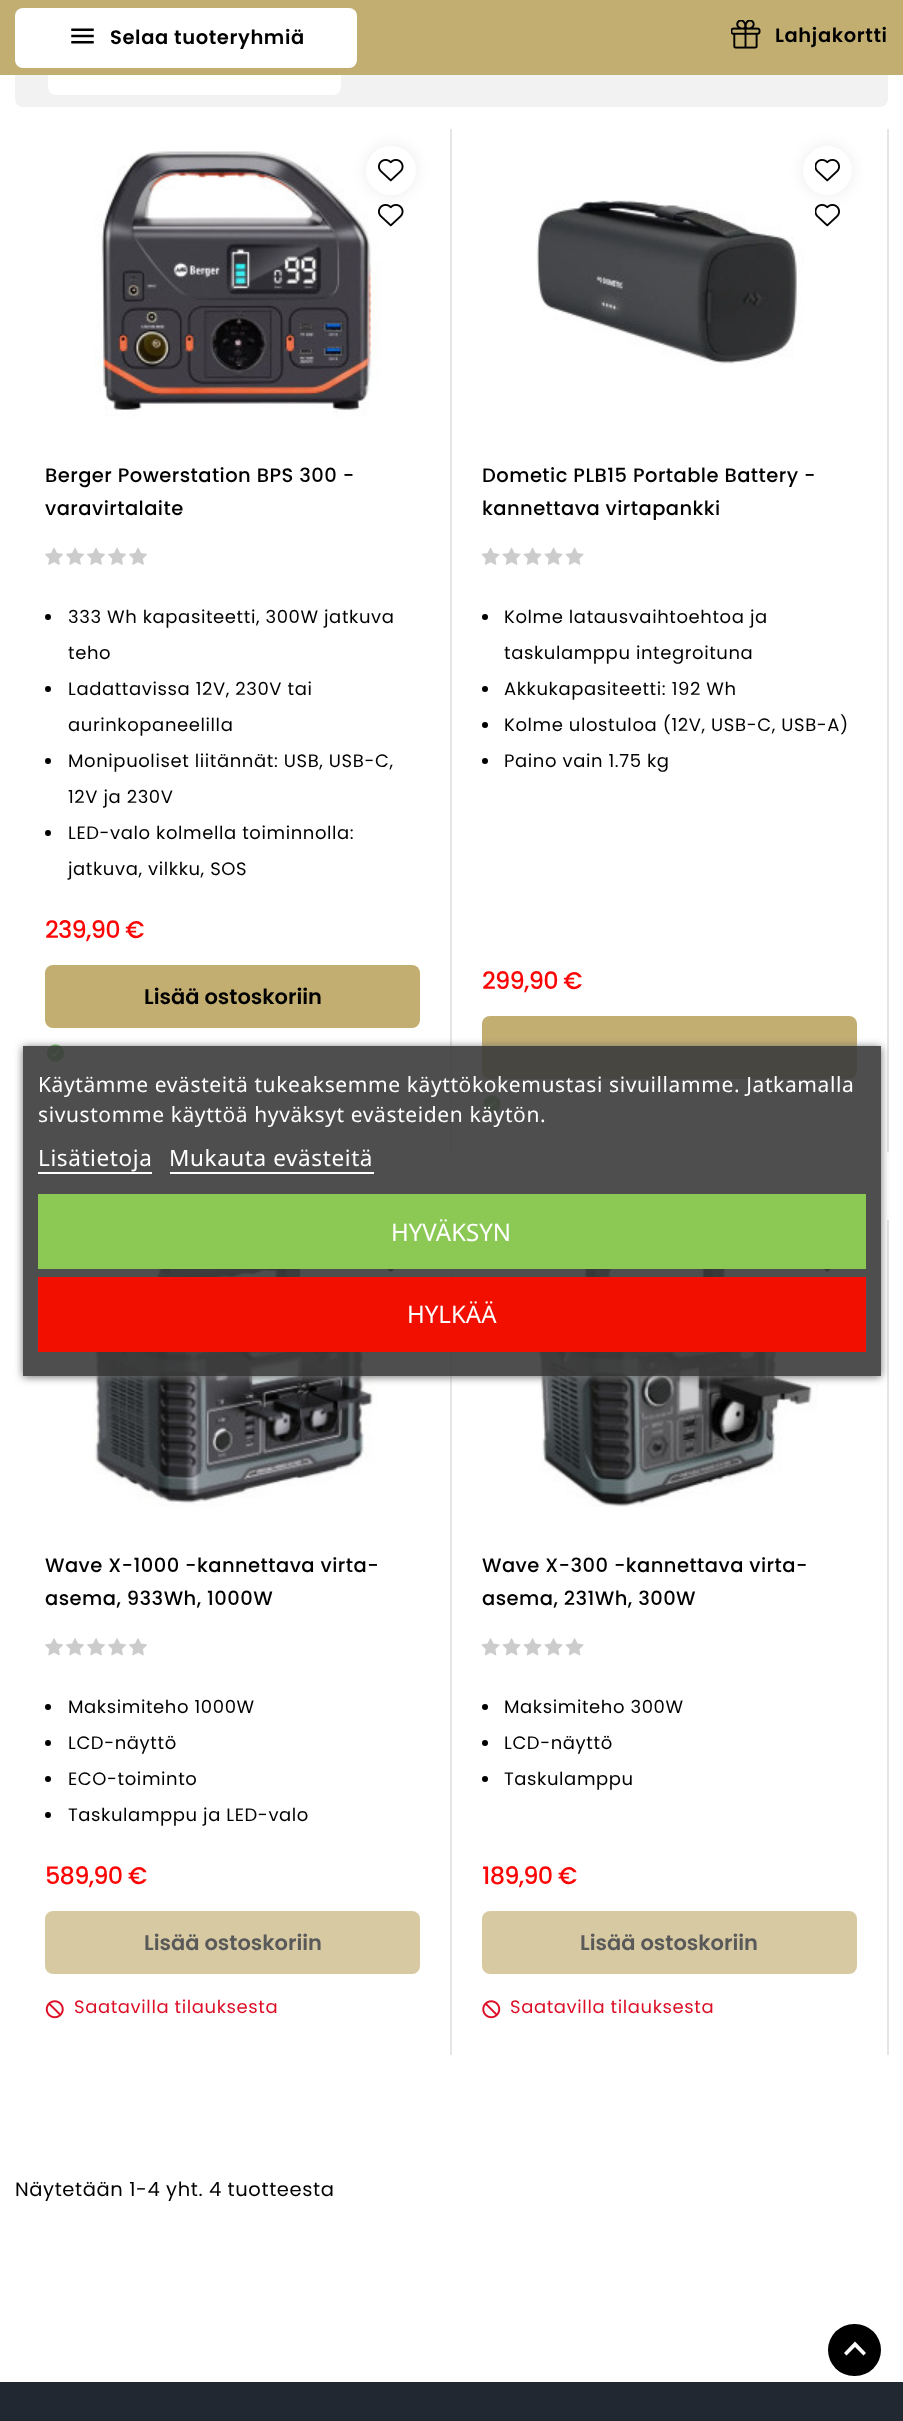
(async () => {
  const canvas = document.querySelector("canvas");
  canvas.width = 903;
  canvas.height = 2421;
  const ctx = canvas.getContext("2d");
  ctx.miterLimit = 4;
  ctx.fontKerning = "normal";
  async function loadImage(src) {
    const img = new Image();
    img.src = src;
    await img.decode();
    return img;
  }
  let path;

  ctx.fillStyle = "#ffffff";
  ctx.fillRect(0, 0, 903, 2421);
  ctx.fillStyle = "#f2f2f2";
  ctx.beginPath();
  ctx.roundRect(15, 35, 873, 72, 8);
  ctx.fill();
  ctx.fillStyle = "#ffffff";
  ctx.beginPath();
  ctx.roundRect(48, 47, 293, 48, 8);
  ctx.fill();
  ctx.fillStyle = "#c2ae71";
  ctx.fillRect(0, 0, 903, 75);
  ctx.fillStyle = "#ffffff";
  ctx.beginPath();
  ctx.roundRect(15, 8, 342, 60, 8);
  ctx.fill();
  ctx.drawImage(await loadImage("img/1.png"), 71, 28, 23, 16);
  ctx.drawImage(await loadImage("img/2.png"), 731, 20, 30, 29);
  ctx.fillStyle = "#e5e5e5";
  ctx.fillRect(450, 129, 2, 1023);
  ctx.drawImage(await loadImage("img/3.png"), 94, 151, 287, 266);
  ctx.fillStyle = "rgba(0, 0, 0, 0.08)";
  ctx.filter = "blur(7.5px)";
  ctx.beginPath();
  ctx.roundRect(366, 146, 50, 49, 24.5);
  ctx.fill();
  ctx.filter = "none";
  ctx.fillStyle = "#ffffff";
  ctx.beginPath();
  ctx.roundRect(366, 146, 50, 49, 24.5);
  ctx.fill();
  ctx.drawImage(await loadImage("img/4.png"), 378, 159, 26, 23);
  ctx.drawImage(await loadImage("img/5.png"), 378, 204, 26, 23);
  ctx.drawImage(await loadImage("img/6.png"), 45, 547, 18, 18);
  ctx.drawImage(await loadImage("img/6.png"), 66, 547, 18, 18);
  ctx.drawImage(await loadImage("img/6.png"), 87, 547, 18, 18);
  ctx.drawImage(await loadImage("img/6.png"), 108, 547, 18, 18);
  ctx.drawImage(await loadImage("img/6.png"), 129, 547, 18, 18);
  ctx.fillStyle = "#000000";
  ctx.beginPath();
  ctx.arc(48, 617, 3, 0, Math.PI * 2);
  ctx.fill();
  ctx.beginPath();
  ctx.arc(48, 689, 3, 0, Math.PI * 2);
  ctx.fill();
  ctx.beginPath();
  ctx.arc(48, 761, 3, 0, Math.PI * 2);
  ctx.fill();
  ctx.beginPath();
  ctx.arc(48, 833, 3, 0, Math.PI * 2);
  ctx.fill();
  ctx.fillStyle = "#c2ae71";
  ctx.beginPath();
  ctx.roundRect(45, 965, 375, 63, 8);
  ctx.fill();
  ctx.drawImage(await loadImage("img/7.png"), 47, 1044, 17, 18);
  ctx.fillStyle = "#e5e5e5";
  ctx.fillRect(887, 129, 2, 1023);
  ctx.drawImage(await loadImage("img/10.png"), 536, 200, 268, 166);
  ctx.fillStyle = "rgba(0, 0, 0, 0.08)";
  ctx.filter = "blur(7.5px)";
  ctx.beginPath();
  ctx.roundRect(803, 146, 49, 49, 24.5);
  ctx.fill();
  ctx.filter = "none";
  ctx.fillStyle = "#ffffff";
  ctx.beginPath();
  ctx.arc(827.5, 170.5, 24.5, 0, Math.PI * 2);
  ctx.fill();
  ctx.drawImage(await loadImage("img/8.png"), 815, 159, 25, 23);
  ctx.drawImage(await loadImage("img/9.png"), 815, 204, 25, 23);
  ctx.drawImage(await loadImage("img/11.png"), 481, 547, 19, 18);
  ctx.drawImage(await loadImage("img/11.png"), 502, 547, 19, 18);
  ctx.drawImage(await loadImage("img/11.png"), 523, 547, 19, 18);
  ctx.drawImage(await loadImage("img/11.png"), 544, 547, 19, 18);
  ctx.drawImage(await loadImage("img/11.png"), 565, 547, 19, 18);
  ctx.fillStyle = "#000000";
  ctx.beginPath();
  ctx.arc(485, 617, 3, 0, Math.PI * 2);
  ctx.fill();
  ctx.beginPath();
  ctx.arc(485, 689, 3, 0, Math.PI * 2);
  ctx.fill();
  ctx.beginPath();
  ctx.arc(485, 725, 3, 0, Math.PI * 2);
  ctx.fill();
  ctx.beginPath();
  ctx.arc(485, 761, 3, 0, Math.PI * 2);
  ctx.fill();
  ctx.fillStyle = "#c2ae71";
  ctx.beginPath();
  ctx.roundRect(482, 1016, 375, 63, 8);
  ctx.fill();
  ctx.drawImage(await loadImage("img/12.png"), 483, 1095, 18, 18);
  ctx.fillStyle = "#e5e5e5";
  ctx.fillRect(450, 1269, 2, 786);
  ctx.drawImage(await loadImage("img/13.png"), 92, 1269, 286, 238);
  ctx.fillStyle = "rgba(0, 0, 0, 0.08)";
  ctx.filter = "blur(7.5px)";
  ctx.beginPath();
  ctx.roundRect(366, 1236, 50, 50, 25);
  ctx.fill();
  ctx.filter = "none";
  ctx.fillStyle = "#ffffff";
  ctx.beginPath();
  ctx.arc(391, 1261, 25, 0, Math.PI * 2);
  ctx.fill();
  ctx.drawImage(await loadImage("img/14.png"), 387, 1269, 7, 3);
  ctx.drawImage(await loadImage("img/15.png"), 45, 1638, 18, 18);
  ctx.drawImage(await loadImage("img/15.png"), 66, 1638, 18, 18);
  ctx.drawImage(await loadImage("img/15.png"), 87, 1638, 18, 18);
  ctx.drawImage(await loadImage("img/15.png"), 108, 1638, 18, 18);
  ctx.drawImage(await loadImage("img/15.png"), 129, 1638, 18, 18);
  ctx.fillStyle = "#000000";
  ctx.beginPath();
  ctx.arc(48, 1707, 3, 0, Math.PI * 2);
  ctx.fill();
  ctx.beginPath();
  ctx.arc(48, 1743, 3, 0, Math.PI * 2);
  ctx.fill();
  ctx.beginPath();
  ctx.arc(48, 1779, 3, 0, Math.PI * 2);
  ctx.fill();
  ctx.beginPath();
  ctx.arc(48, 1815, 3, 0, Math.PI * 2);
  ctx.fill();
  ctx.fillStyle = "#d7caa3";
  ctx.beginPath();
  ctx.roundRect(45, 1911, 375, 63, 8);
  ctx.fill();
  ctx.drawImage(await loadImage("img/16.png"), 45, 2000, 19, 19);
  ctx.fillStyle = "#e5e5e5";
  ctx.fillRect(887, 1220, 2, 835);
  ctx.drawImage(await loadImage("img/17.png"), 533, 1269, 285, 238);
  ctx.fillStyle = "rgba(0, 0, 0, 0.08)";
  ctx.filter = "blur(7.5px)";
  ctx.beginPath();
  ctx.roundRect(803, 1236, 49, 50, 24.5);
  ctx.fill();
  ctx.filter = "none";
  ctx.fillStyle = "#ffffff";
  ctx.beginPath();
  ctx.roundRect(803, 1236, 49, 50, 24.5);
  ctx.fill();
  ctx.drawImage(await loadImage("img/18.png"), 824, 1269, 7, 3);
  ctx.drawImage(await loadImage("img/19.png"), 481, 1638, 19, 18);
  ctx.drawImage(await loadImage("img/19.png"), 502, 1638, 19, 18);
  ctx.drawImage(await loadImage("img/19.png"), 523, 1638, 19, 18);
  ctx.drawImage(await loadImage("img/19.png"), 544, 1638, 19, 18);
  ctx.drawImage(await loadImage("img/19.png"), 565, 1638, 19, 18);
  ctx.fillStyle = "#000000";
  ctx.beginPath();
  ctx.arc(485, 1707, 3, 0, Math.PI * 2);
  ctx.fill();
  ctx.beginPath();
  ctx.arc(485, 1743, 3, 0, Math.PI * 2);
  ctx.fill();
  ctx.beginPath();
  ctx.arc(485, 1779, 3, 0, Math.PI * 2);
  ctx.fill();
  ctx.fillStyle = "#d7caa3";
  ctx.beginPath();
  ctx.roundRect(482, 1911, 375, 63, 8);
  ctx.fill();
  ctx.drawImage(await loadImage("img/20.png"), 482, 2000, 19, 19);
  ctx.fillStyle = "#222831";
  ctx.fillRect(0, 2382, 903, 39);
  ctx.save();
  path = new Path2D("M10 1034H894V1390H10ZM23 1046H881V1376H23Z");
  ctx.clip(path, "evenodd");
  ctx.fillStyle = "#707070";
  ctx.filter = "blur(4px)";
  ctx.beginPath();
  ctx.rect(23, 1047, 858, 330);
  ctx.fill();
  ctx.filter = "none";
  ctx.restore();
  for (const [x, y, w, h, color] of [
    [23, 1046, 858, 330, "rgba(59, 59, 59, 0.9)"],
    [38, 1172, 114, 2, "#ffffff"],
    [170, 1172, 204, 2, "#ffffff"],
    [38, 1194, 828, 75, "#8bc954"],
    [38, 1277, 828, 75, "#f20f00"],
  ]) {
    ctx.fillStyle = color;
    ctx.fillRect(x, y, w, h);
  }
  ctx.fillStyle = "#000000";
  ctx.beginPath();
  ctx.roundRect(828, 2324, 53, 52, 26);
  ctx.fill();
  ctx.fillStyle = "#ffffff";
  path = new Path2D("M855 2341.5L866 2353L863.5 2355.5L855 2347L846.5 2355.5L844 2353Z");
  ctx.fill(path);
  ctx.letterSpacing = "0.6px";
  ctx.font = "600 19.5px Poppins";
  ctx.fillStyle = "#000000";
  ctx.fillText("Selaa tuoteryhmiä", 110, 44);
  ctx.fillText("Lahjakortti", 775, 42);
  ctx.letterSpacing = "0.45px";
  ctx.font = "500 19.5px Poppins";
  ctx.fillText("Berger Powerstation BPS 300 -", 45, 482);
  ctx.fillText("varavirtalaite", 45, 515);
  ctx.letterSpacing = "0.6px";
  ctx.font = "18px Poppins";
  for (const [text, x, y] of [
    ["333 Wh kapasiteetti, 300W jatkuva", 68, 623],
    ["teho", 68, 659],
    ["Ladattavissa 12V, 230V tai", 68, 695],
    ["aurinkopaneelilla", 68, 731],
    ["Monipuoliset liitännät: USB, USB-C,", 68, 767],
    ["12V ja 230V", 68, 803],
    ["LED-valo kolmella toiminnolla:", 68, 839],
    ["jatkuva, vilkku, SOS", 68, 875],
  ]) {
    ctx.fillText(text, x, y);
  }
  ctx.letterSpacing = "-0.75px";
  ctx.font = "500 24px Poppins";
  ctx.fillStyle = "#fc0505";
  ctx.fillText("239,90 €", 45, 938);
  ctx.letterSpacing = "0px";
  ctx.font = "600 21px Poppins";
  ctx.fillStyle = "#000000";
  ctx.fillText("Lisää ostoskoriin", 144, 1004);
  ctx.letterSpacing = "0.45px";
  ctx.font = "500 19.5px Poppins";
  ctx.fillText("Dometic PLB15 Portable Battery -", 482, 482);
  ctx.fillText("kannettava virtapankki", 482, 515);
  ctx.letterSpacing = "0.6px";
  ctx.font = "18px Poppins";
  for (const [text, x, y] of [
    ["Kolme latausvaihtoehtoa ja", 504, 623],
    ["taskulamppu integroituna", 504, 659],
    ["Akkukapasiteetti: 192 Wh", 504, 695],
    ["Kolme ulostuloa (12V, USB-C, USB-A)", 504, 731],
    ["Paino vain 1.75 kg", 504, 767],
  ]) {
    ctx.fillText(text, x, y);
  }
  ctx.letterSpacing = "-0.75px";
  ctx.font = "500 24px Poppins";
  ctx.fillStyle = "#fc0505";
  ctx.fillText("299,90 €", 482, 989);
  ctx.letterSpacing = "0.45px";
  ctx.font = "500 19.5px Poppins";
  ctx.fillStyle = "#000000";
  ctx.fillText("Wave X-1000 -kannettava virta-", 45, 1572);
  ctx.fillText("asema, 933Wh, 1000W", 45, 1605);
  ctx.letterSpacing = "0.6px";
  ctx.font = "18px Poppins";
  for (const [text, x, y] of [
    ["Maksimiteho 1000W", 68, 1713],
    ["LCD-näyttö", 68, 1749],
    ["ECO-toiminto", 68, 1785],
    ["Taskulamppu ja LED-valo", 68, 1821],
  ]) {
    ctx.fillText(text, x, y);
  }
  ctx.letterSpacing = "-0.75px";
  ctx.font = "500 24px Poppins";
  ctx.fillStyle = "#fc0505";
  ctx.fillText("589,90 €", 45, 1884);
  ctx.letterSpacing = "0px";
  ctx.font = "600 21px Poppins";
  ctx.fillStyle = "#595959";
  ctx.fillText("Lisää ostoskoriin", 144, 1950);
  ctx.letterSpacing = "0.6px";
  ctx.font = "18px Poppins";
  ctx.fillStyle = "#dd0f27";
  ctx.fillText("Saatavilla tilauksesta", 74, 2013);
  ctx.letterSpacing = "0.45px";
  ctx.font = "500 19.5px Poppins";
  ctx.fillStyle = "#000000";
  ctx.fillText("Wave X-300 -kannettava virta-", 482, 1572);
  ctx.fillText("asema, 231Wh, 300W", 482, 1605);
  ctx.letterSpacing = "0.6px";
  ctx.font = "18px Poppins";
  for (const [text, x, y] of [
    ["Maksimiteho 300W", 504, 1713],
    ["LCD-näyttö", 504, 1749],
    ["Taskulamppu", 504, 1785],
  ]) {
    ctx.fillText(text, x, y);
  }
  ctx.letterSpacing = "-0.75px";
  ctx.font = "500 24px Poppins";
  ctx.fillStyle = "#fc0505";
  ctx.fillText("189,90 €", 482, 1884);
  ctx.letterSpacing = "0px";
  ctx.font = "600 21px Poppins";
  ctx.fillStyle = "#595959";
  ctx.fillText("Lisää ostoskoriin", 580, 1950);
  ctx.letterSpacing = "0.6px";
  ctx.font = "18px Poppins";
  ctx.fillStyle = "#dd0f27";
  ctx.fillText("Saatavilla tilauksesta", 510, 2013);
  ctx.font = "19.5px Poppins";
  ctx.fillStyle = "#000000";
  ctx.fillText("Näytetään 1-4 yht. 4 tuotteesta", 15, 2196);
  ctx.font = "21px Noto Sans";
  ctx.fillStyle = "#ffffff";
  ctx.fillText("Käytämme evästeitä tukeaksemme käyttökokemustasi sivuillamme. Jatkamalla", 38, 1092);
  ctx.fillText("sivustomme käyttöä hyväksyt evästeiden käytön.", 38, 1122);
  ctx.font = "22.5px Noto Sans";
  ctx.fillText("Lisätietoja", 38, 1166);
  ctx.fillText("Mukauta evästeitä", 169, 1166);
  ctx.letterSpacing = "0px";
  ctx.font = "24px Noto Sans";
  ctx.fillText("HYVÄKSYN", 391, 1241);
  ctx.fillText("HYLKÄÄ", 407, 1323);
})();
